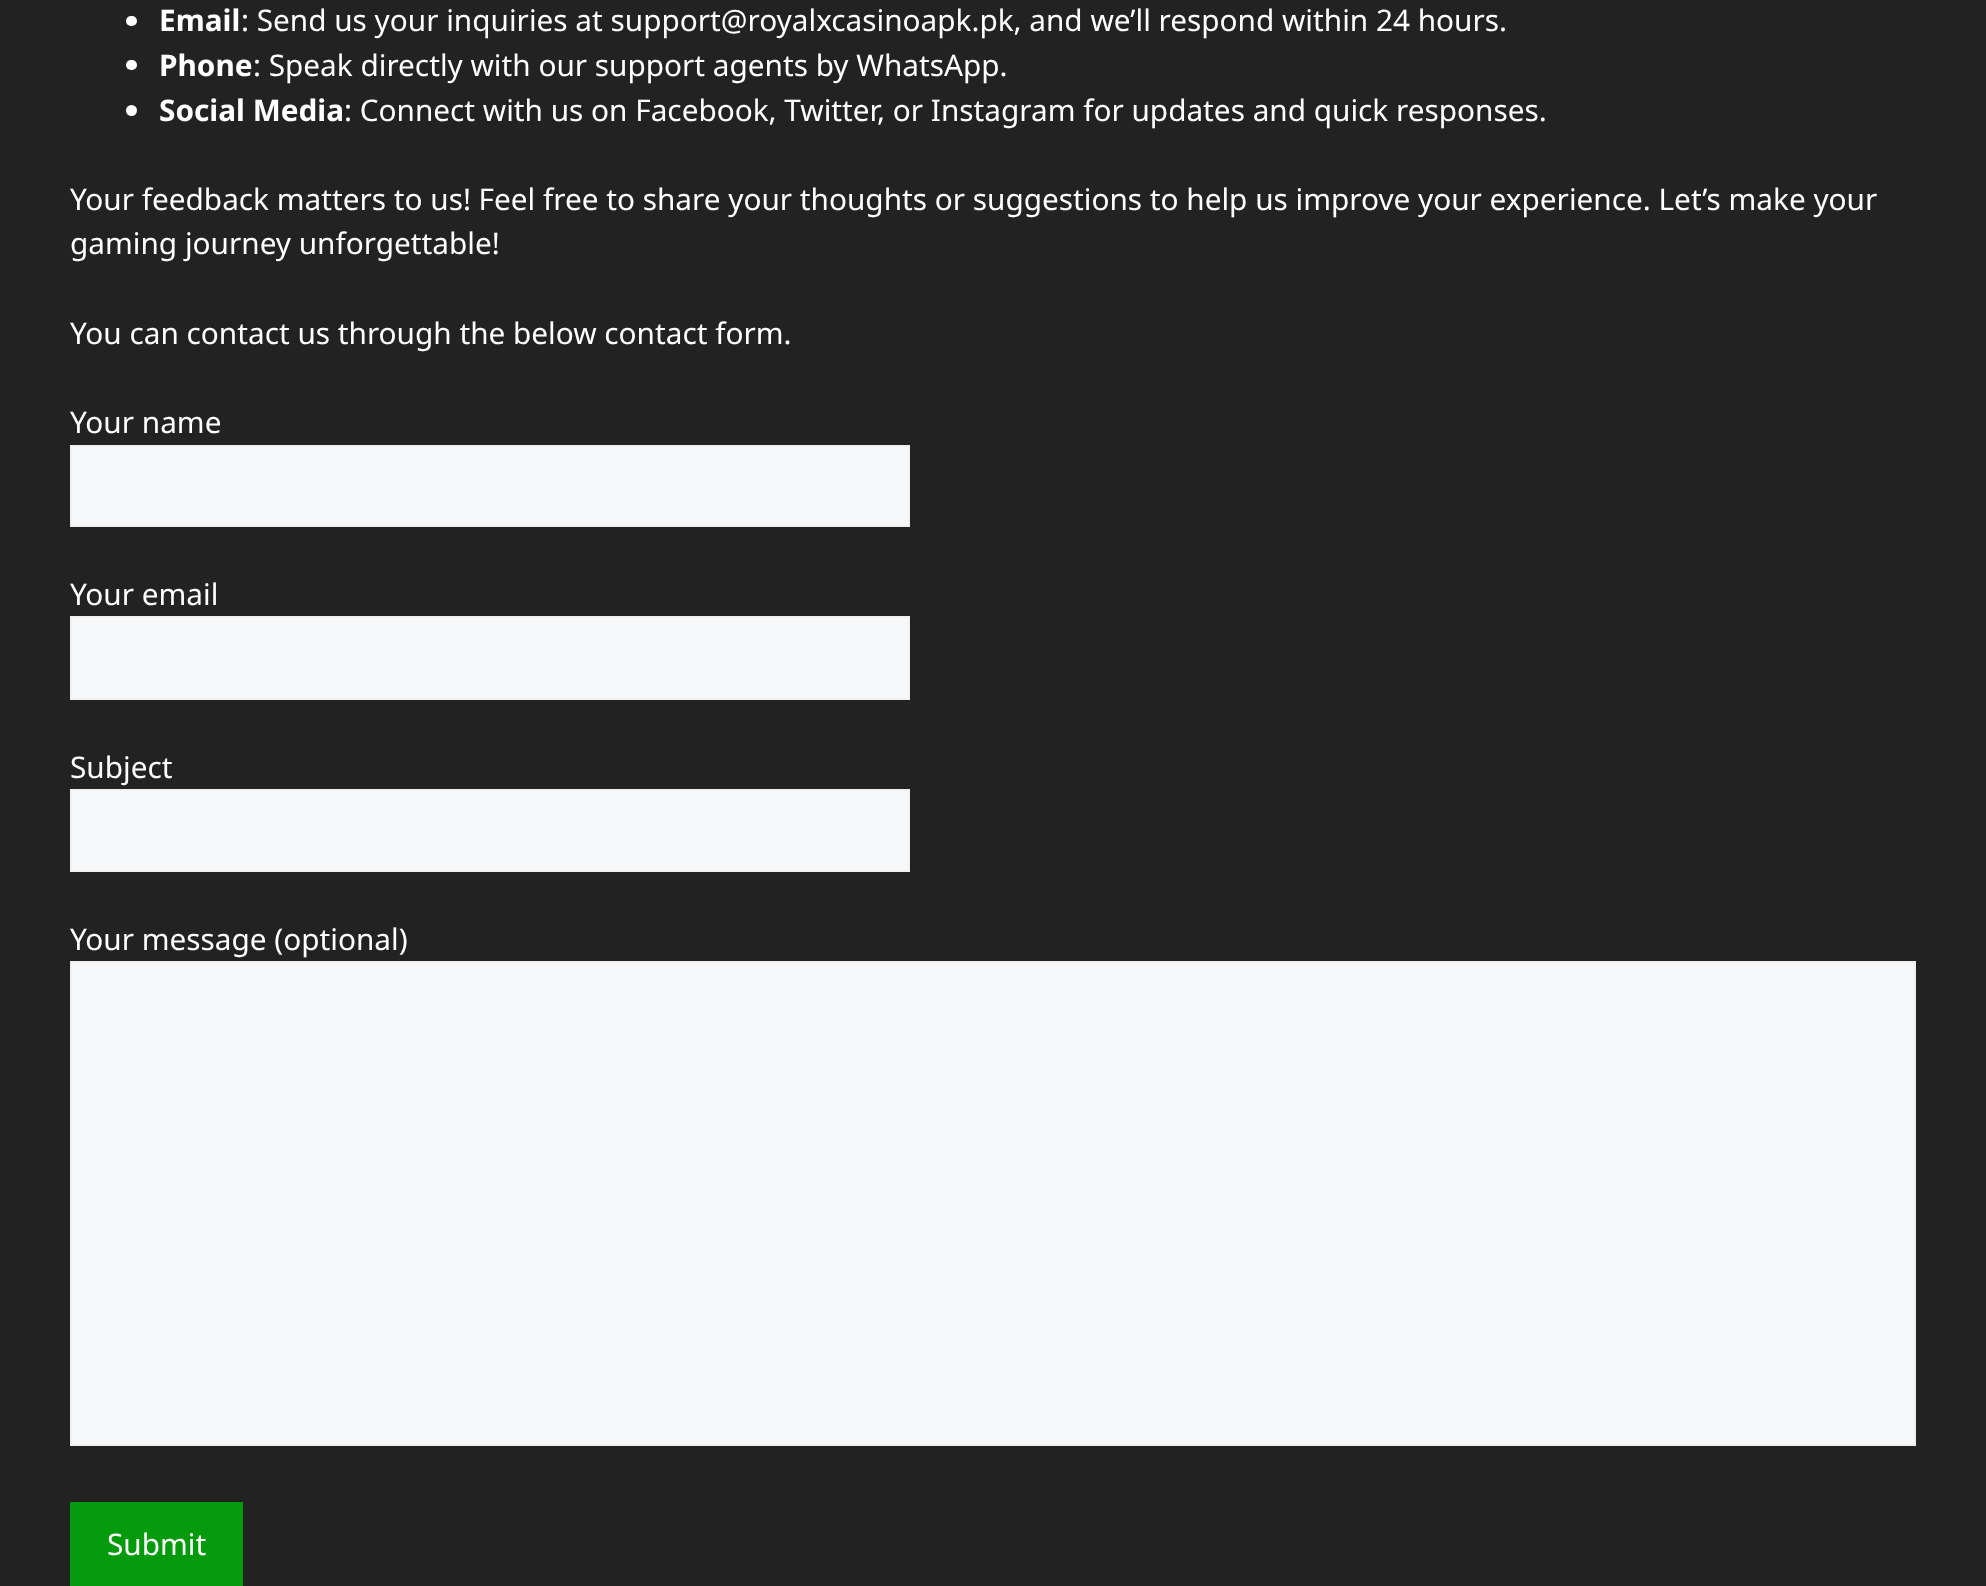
(async () => {
  const canvas = document.querySelector("canvas");
  canvas.width = 1986;
  canvas.height = 1586;
  const ctx = canvas.getContext("2d");
  ctx.miterLimit = 4;
  ctx.fontKerning = "normal";

  ctx.fillStyle = "#222222";
  ctx.fillRect(0, 0, 1986, 1586);
  ctx.fillStyle = "#ffffff";
  ctx.beginPath();
  ctx.roundRect(126, 16, 11, 10, 5);
  ctx.fill();
  ctx.beginPath();
  ctx.roundRect(126, 60, 11, 10, 5);
  ctx.fill();
  ctx.beginPath();
  ctx.arc(131.5, 110.5, 5.5, 0, Math.PI * 2);
  ctx.fill();
  ctx.fillStyle = "#f7f8f9";
  ctx.beginPath();
  ctx.rect(71, 446, 838, 80);
  ctx.fill();
  ctx.strokeStyle = "#f0f0f0";
  ctx.lineWidth = 2;
  ctx.stroke();
  ctx.beginPath();
  ctx.rect(71, 617, 838, 82);
  ctx.fill();
  ctx.stroke();
  ctx.beginPath();
  ctx.rect(71, 790, 838, 81);
  ctx.fill();
  ctx.stroke();
  ctx.beginPath();
  ctx.rect(71, 962, 1844, 483);
  ctx.fill();
  ctx.stroke();
  ctx.fillStyle = "#039a0b";
  ctx.fillRect(70, 1502, 173, 84);
  ctx.font = "bold 29.75px Noto Sans";
  ctx.fillStyle = "#ffffff";
  ctx.fillText("Email", 159, 31);
  ctx.font = "29.75px Noto Sans";
  ctx.fillText(": Send us your inquiries at support@royalxcasinoapk.pk, and we’ll respond within 24 hours.", 241, 31);
  ctx.font = "bold 29.75px Noto Sans";
  ctx.fillText("Phone", 159, 76);
  ctx.font = "29.75px Noto Sans";
  ctx.fillText(": Speak directly with our support agents by WhatsApp.", 253, 76);
  ctx.font = "bold 29.75px Noto Sans";
  ctx.fillText("Social Media", 159, 121);
  ctx.font = "29.75px Noto Sans";
  for (const [text, x, y] of [
    [": Connect with us on Facebook, Twitter, or Instagram for updates and quick responses.", 344, 121],
    ["Your feedback matters to us! Feel free to share your thoughts or suggestions to help us improve your experience. Let’s make your", 70, 210],
    ["gaming journey unforgettable!", 70, 254],
    ["You can contact us through the below contact form.", 70, 344],
    ["Your name", 70, 433],
    ["Your email", 70, 605],
    ["Subject", 70, 778],
    ["Your message (optional)", 70, 950],
    ["Submit", 107, 1555],
  ]) {
    ctx.fillText(text, x, y);
  }
})();
